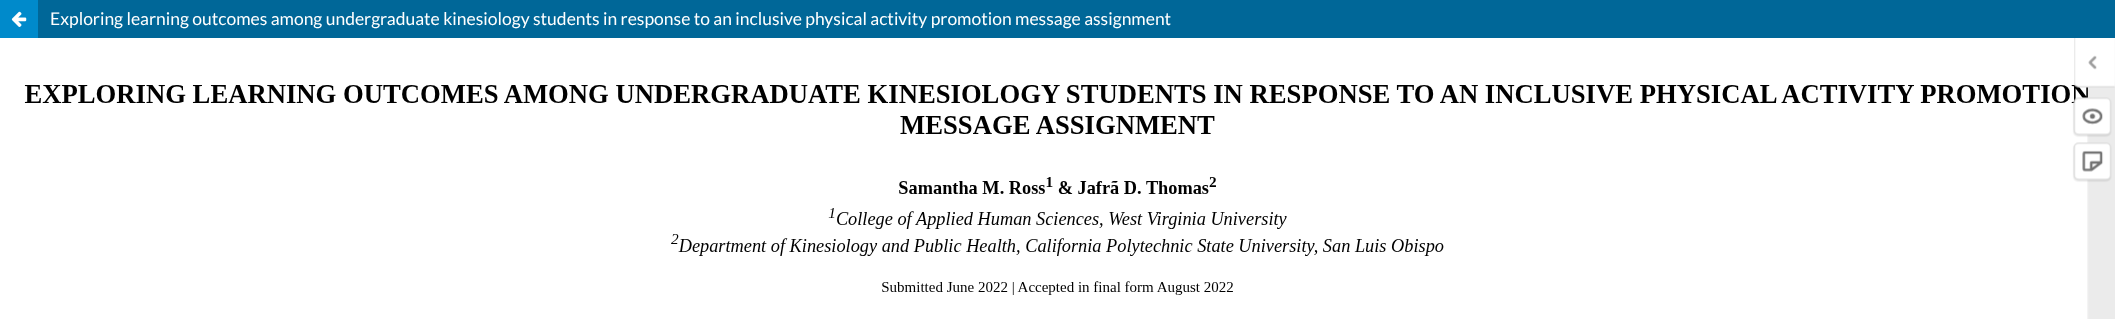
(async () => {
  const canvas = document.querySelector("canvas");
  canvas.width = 2115;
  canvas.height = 319;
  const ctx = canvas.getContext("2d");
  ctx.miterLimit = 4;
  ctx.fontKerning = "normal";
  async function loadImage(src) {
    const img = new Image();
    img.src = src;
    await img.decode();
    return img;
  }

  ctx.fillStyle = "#ffffff";
  ctx.fillRect(0, 0, 2115, 319);
  ctx.fillStyle = "#006798";
  ctx.fillRect(38, 0, 2077, 38);
  ctx.fillStyle = "#008acb";
  ctx.fillRect(0, 0, 38, 38);
  ctx.drawImage(await loadImage("img/1.png"), 11, 11, 16, 16);
  ctx.drawImage(await loadImage("img/2.png"), 24, 38, 2091, 281);
  ctx.font = "17.5px Lato";
  ctx.fillStyle = "#ffffff";
  ctx.fillText("Exploring learning outcomes among undergraduate kinesiology students in response to an inclusive physical activity promotion message assignment", 50, 25);
})();
